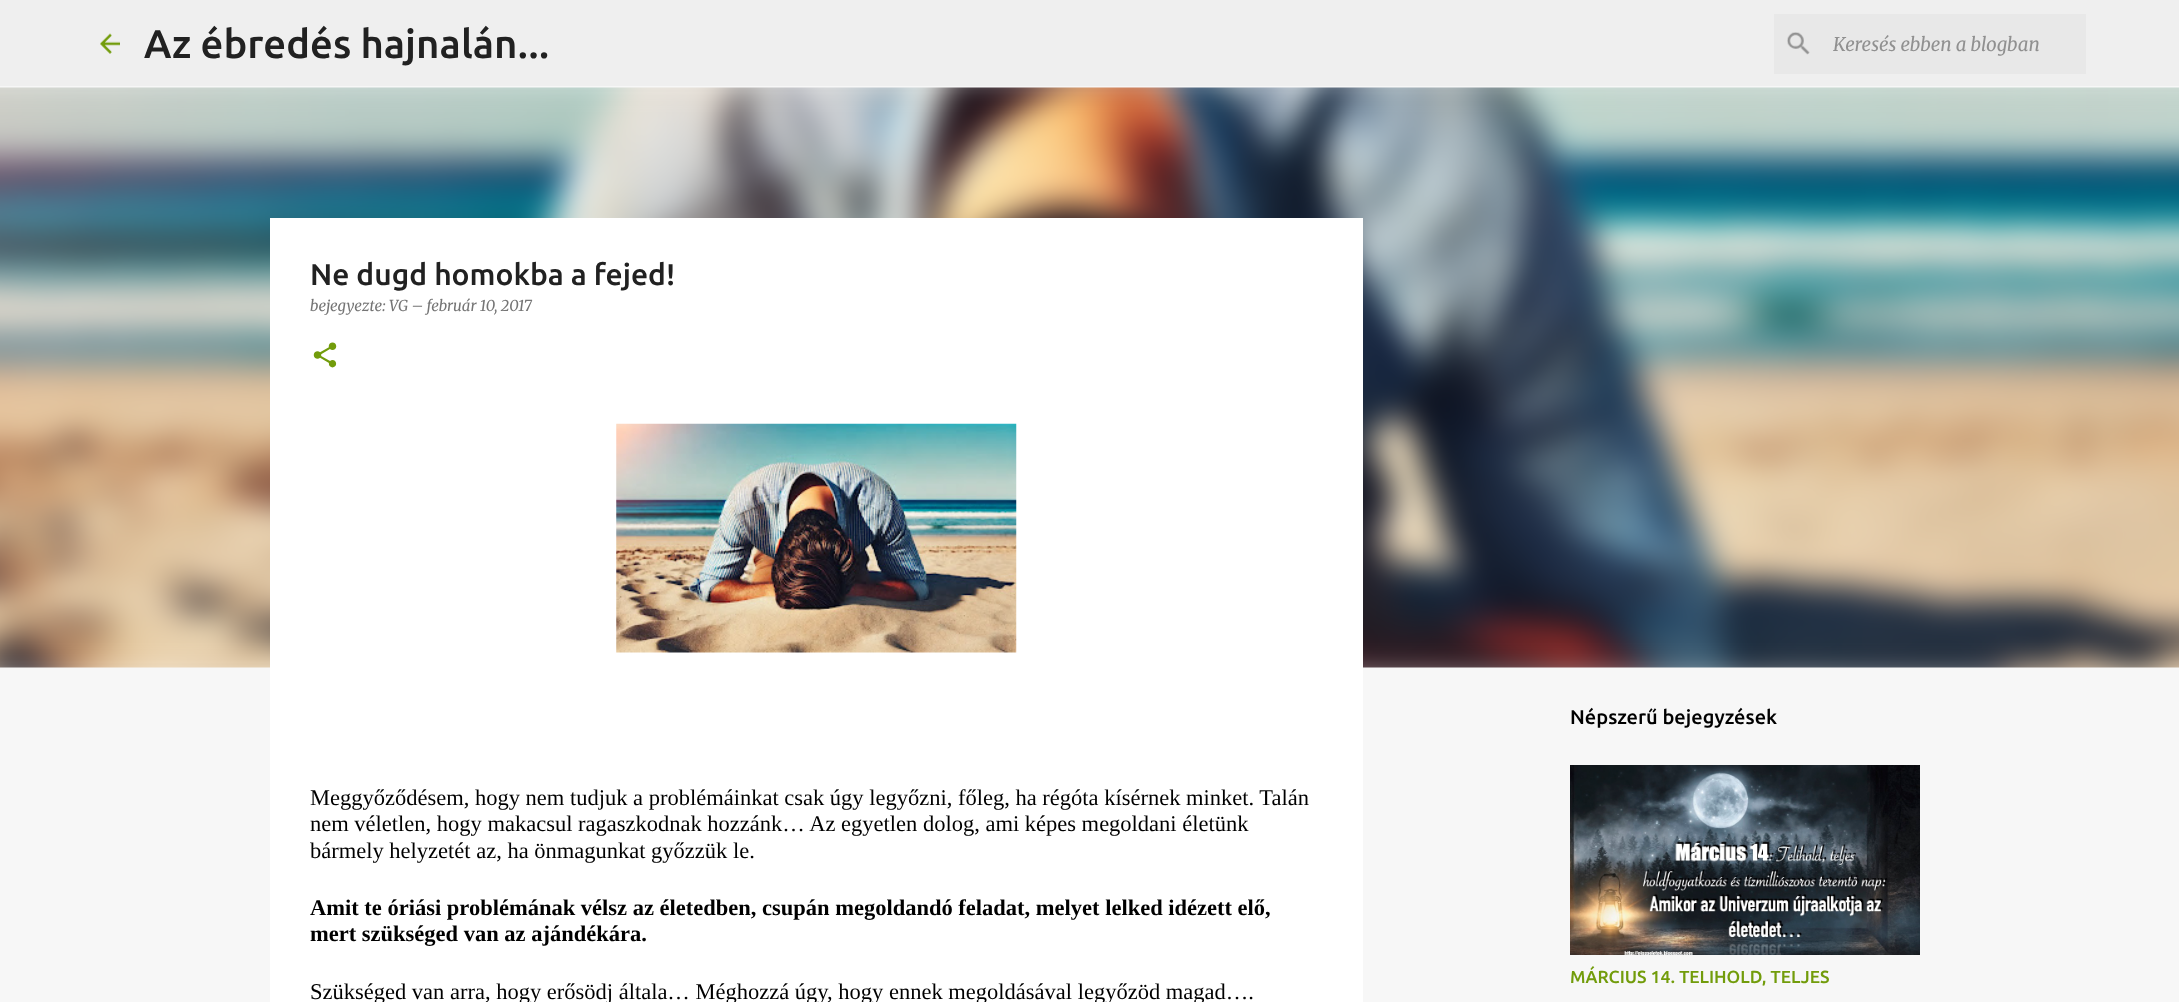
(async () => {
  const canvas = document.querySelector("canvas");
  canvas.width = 2179;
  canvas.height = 1002;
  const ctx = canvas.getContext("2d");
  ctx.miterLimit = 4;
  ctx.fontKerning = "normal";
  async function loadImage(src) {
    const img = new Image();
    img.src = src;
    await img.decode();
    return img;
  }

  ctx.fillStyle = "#f7f7f7";
  ctx.fillRect(0, 0, 2179, 1002);
  ctx.fillStyle = "#efefef";
  ctx.fillRect(0, 0, 2179, 86);
  ctx.drawImage(await loadImage("img/1.png"), 100, 33, 20, 21);
  ctx.fillStyle = "#e8e8e8";
  ctx.fillRect(1774, 14, 312, 60);
  ctx.drawImage(await loadImage("img/2.png"), 1787, 32, 23, 23);
  ctx.drawImage(await loadImage("img/6.png"), 0, 87, 2179, 581);
  ctx.fillStyle = "#ffffff";
  ctx.fillRect(270, 218, 1093, 784);
  ctx.drawImage(await loadImage("img/3.png"), 313, 342, 24, 26);
  ctx.drawImage(await loadImage("img/4.png"), 616, 423, 401, 230);
  ctx.drawImage(await loadImage("img/5.png"), 1570, 765, 350, 190);
  ctx.font = "500 40px Ubuntu";
  ctx.fillStyle = "#212121";
  ctx.fillText("Az ébredés hajnalán...", 144, 58);
  ctx.font = "italic 18.75px Merriweather";
  ctx.fillStyle = "#909090";
  ctx.fillText("Keresés ebben a blogban", 1833, 51);
  ctx.font = "500 30px Ubuntu";
  ctx.fillStyle = "#212121";
  ctx.fillText("Ne dugd homokba a fejed!", 310, 285);
  ctx.font = "italic 15px Merriweather";
  ctx.fillStyle = "#757575";
  ctx.fillText("bejegyezte: VG – február 10, 2017", 310, 311);
  ctx.font = "22.5px Liberation Serif";
  ctx.fillStyle = "#000000";
  for (const [text, x, y] of [
    ["Meggyőződésem, hogy nem tudjuk a problémáinkat csak úgy legyőzni, főleg, ha régóta kísérnek minket. Talán", 310, 805],
    ["nem véletlen, hogy makacsul ragaszkodnak hozzánk… Az egyetlen dolog, ami képes megoldani életünk", 310, 831],
    ["bármely helyzetét az, ha önmagunkat győzzük le.", 310, 858],
  ]) {
    ctx.fillText(text, x, y);
  }
  ctx.font = "bold 22.5px Liberation Serif";
  ctx.fillText("Amit te óriási problémának vélsz az életedben, csupán megoldandó feladat, melyet lelked idézett elő,", 310, 915);
  ctx.fillText("mert szükséged van az ajándékára.", 310, 941);
  ctx.font = "22.5px Liberation Serif";
  ctx.fillText("Szükséged van arra, hogy erősödj általa… Méghozzá úgy, hogy ennek megoldásával legyőzöd magad….", 310, 999);
  ctx.font = "500 20px Ubuntu";
  ctx.fillText("Népszerű bejegyzések", 1570, 724);
  ctx.font = "500 17.5px Ubuntu";
  ctx.fillStyle = "#729c0b";
  ctx.fillText("MÁRCIUS 14. TELIHOLD, TELJES", 1570, 983);
})();
